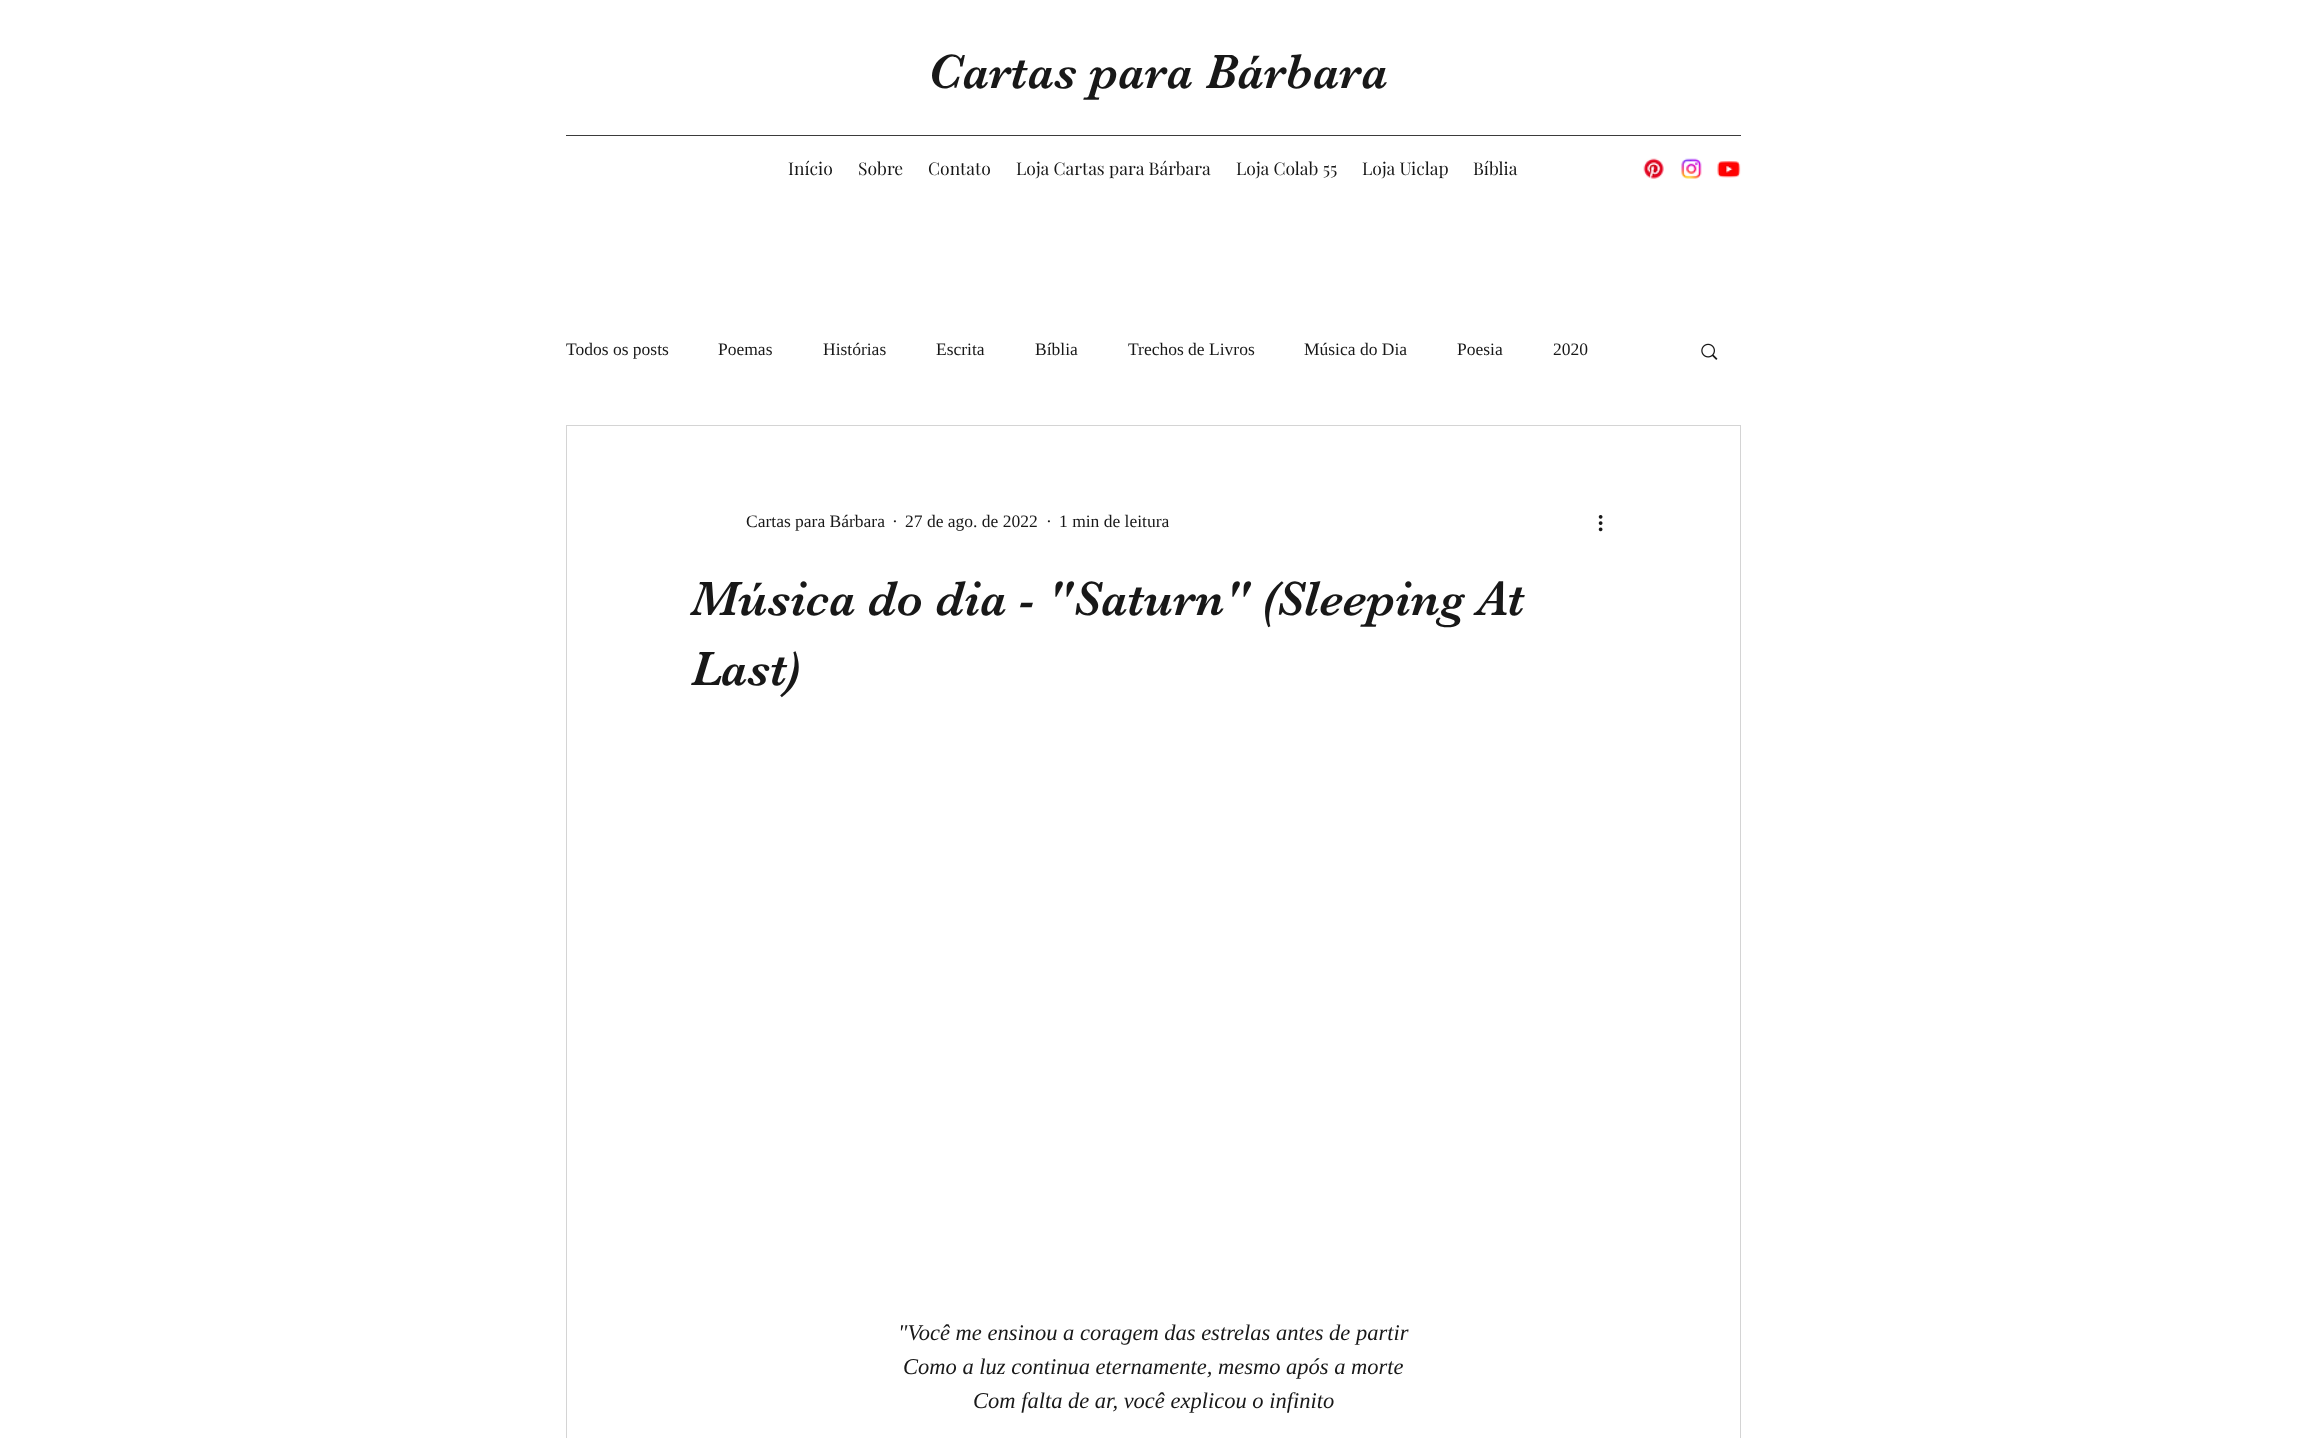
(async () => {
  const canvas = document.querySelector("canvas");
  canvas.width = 2306;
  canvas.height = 1438;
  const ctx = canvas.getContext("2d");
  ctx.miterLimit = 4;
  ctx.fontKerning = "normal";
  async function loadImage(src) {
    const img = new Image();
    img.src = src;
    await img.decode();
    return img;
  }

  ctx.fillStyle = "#ffffff";
  ctx.fillRect(0, 0, 2306, 1438);
  ctx.fillStyle = "#3b3b3b";
  ctx.fillRect(566, 135, 1175, 1);
  ctx.drawImage(await loadImage("img/1.png"), 1643, 158, 21, 21);
  ctx.drawImage(await loadImage("img/2.png"), 1681, 158, 21, 21);
  ctx.drawImage(await loadImage("img/3.png"), 1717, 161, 24, 17);
  ctx.drawImage(await loadImage("img/4.png"), 1701, 343, 17, 17);
  ctx.strokeStyle = "#d4d4d4";
  ctx.strokeRect(566.5, 425.5, 1174, 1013);
  ctx.drawImage(await loadImage("img/5.png"), 1598, 515, 5, 17);
  ctx.font = "50px 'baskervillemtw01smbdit'";
  ctx.fillStyle = "#181818";
  ctx.fillText("Cartas para Bárbara", 928, 88);
  ctx.font = "17.5px Playfair Display";
  for (const [text, x, y] of [
    ["Início", 788, 175],
    ["Sobre", 858, 175],
    ["Contato", 928, 175],
    ["Loja Cartas para Bárbara", 1016, 175],
    ["Loja Colab 55", 1236, 175],
    ["Loja Uiclap", 1362, 175],
    ["Bíblia", 1473, 175],
  ]) {
    ctx.fillText(text, x, y);
  }
  ctx.font = "17.5px Liberation Serif";
  for (const [text, x, y] of [
    ["Todos os posts", 566, 355],
    ["Poemas", 718, 355],
    ["Histórias", 823, 355],
    ["Escrita", 936, 355],
    ["Bíblia", 1035, 355],
    ["Trechos de Livros", 1128, 355],
    ["Música do Dia", 1304, 355],
    ["Poesia", 1457, 355],
    ["2020", 1553, 355],
    ["Cartas para Bárbara", 746, 527],
    ["·", 892, 527],
    ["27 de ago. de 2022", 905, 527],
    ["·", 1046, 527],
    ["1 min de leitura", 1059, 527],
  ]) {
    ctx.fillText(text, x, y);
  }
  ctx.font = "50px 'baskervillemtw01smbdit'";
  ctx.fillText("Música do dia - \"Saturn\" (Sleeping At", 691, 615);
  ctx.fillText("Last)", 691, 685);
  ctx.font = "italic 22.5px Liberation Serif";
  for (const [text, x, y] of [
    ["\"Você me ensinou a coragem das estrelas antes de partir", 898, 1340],
    ["Como a luz continua eternamente, mesmo após a morte", 903, 1374],
    ["Com falta de ar, você explicou o infinito", 973, 1408],
  ]) {
    ctx.fillText(text, x, y);
  }
})();
